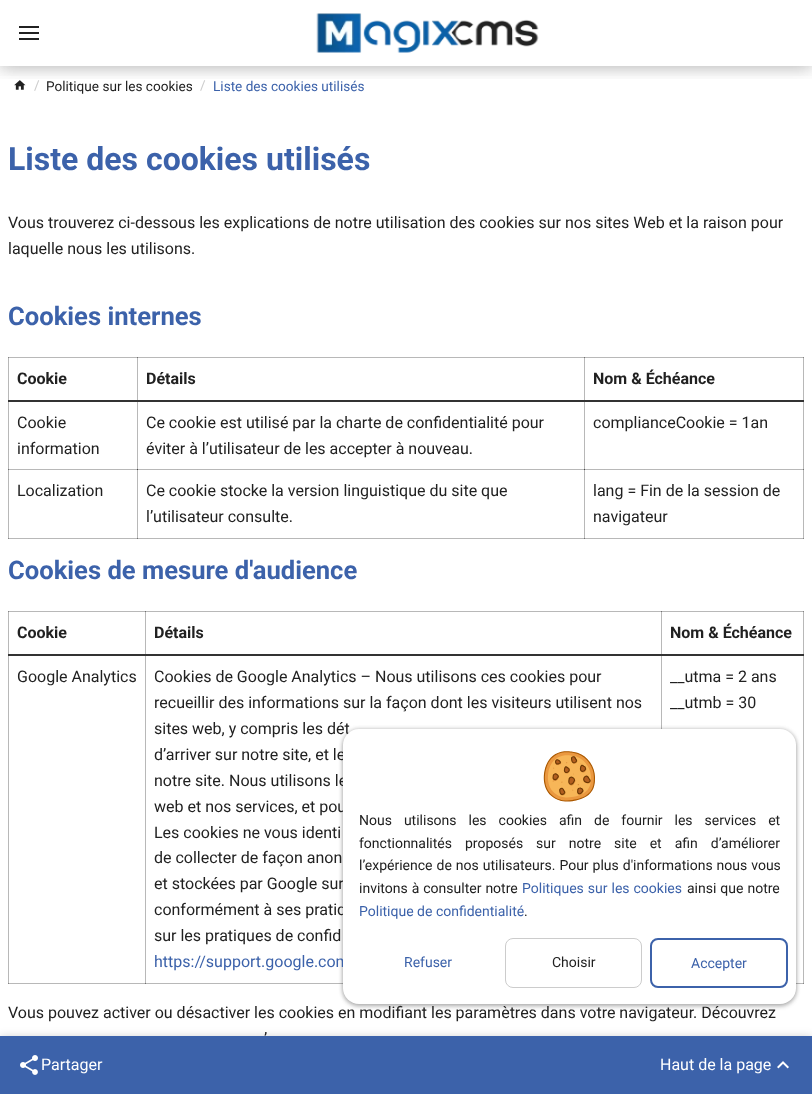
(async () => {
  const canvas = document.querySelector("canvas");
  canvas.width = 812;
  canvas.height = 1094;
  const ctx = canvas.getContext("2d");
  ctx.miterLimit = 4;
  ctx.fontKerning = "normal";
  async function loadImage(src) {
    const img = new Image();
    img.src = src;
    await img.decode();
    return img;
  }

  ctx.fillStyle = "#ffffff";
  ctx.fillRect(0, 0, 812, 1094);
  for (const [x, y, w, h, color] of [
    [145, 611, 1, 373, "#b8b8b8"],
    [661, 611, 1, 118, "#b8b8b8"],
    [8, 611, 1, 373, "#b8b8b8"],
    [8, 983, 335, 1, "#b8b8b8"],
    [145, 983, 1, 1, "#717171"],
    [796, 983, 8, 1, "#b8b8b8"],
    [8, 983, 1, 1, "#858585"],
    [803, 611, 1, 373, "#b8b8b8"],
    [803, 983, 1, 1, "#858585"],
    [137, 357, 1, 113, "#b8b8b8"],
    [584, 357, 1, 113, "#b8b8b8"],
    [8, 469, 130, 1, "#b8b8b8"],
    [137, 469, 1, 70, "#b8b8b8"],
    [137, 469, 448, 1, "#b8b8b8"],
    [137, 469, 1, 1, "#464646"],
    [584, 469, 1, 70, "#b8b8b8"],
    [584, 469, 220, 1, "#b8b8b8"],
    [584, 469, 1, 1, "#464646"],
    [8, 357, 1, 182, "#b8b8b8"],
    [8, 469, 1, 1, "#717171"],
    [8, 538, 796, 1, "#b8b8b8"],
    [137, 538, 1, 1, "#717171"],
    [584, 538, 1, 1, "#717171"],
    [8, 538, 1, 1, "#858585"],
    [803, 357, 1, 182, "#b8b8b8"],
    [803, 469, 1, 1, "#717171"],
    [803, 538, 1, 1, "#858585"],
  ]) {
    ctx.fillStyle = color;
    ctx.fillRect(x, y, w, h);
  }
  ctx.drawImage(await loadImage("img/2.png"), 14, 80, 12, 10);
  ctx.save();
  ctx.beginPath();
  ctx.rect(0, 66, 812, 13);
  ctx.clip();
  ctx.fillStyle = "rgba(0, 0, 0, 0.1)";
  ctx.filter = "blur(10px)";
  ctx.beginPath();
  ctx.rect(0, 5, 812, 66);
  ctx.fill();
  ctx.filter = "none";
  ctx.restore();
  ctx.save();
  ctx.beginPath();
  ctx.rect(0, 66, 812, 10);
  ctx.clip();
  ctx.fillStyle = "rgba(0, 0, 0, 0.2)";
  ctx.filter = "blur(7.5px)";
  ctx.beginPath();
  ctx.rect(0, 0, 812, 66);
  ctx.fill();
  ctx.filter = "none";
  ctx.restore();
  for (const [x, y, w, h, color] of [
    [19, 26, 20, 2, "#212121"],
    [19, 32, 20, 2, "#212121"],
    [19, 38, 20, 2, "#212121"],
  ]) {
    ctx.fillStyle = color;
    ctx.fillRect(x, y, w, h);
  }
  ctx.drawImage(await loadImage("img/1.png"), 316, 13, 223, 40);
  for (const [x, y, w, h, color] of [
    [8, 357, 796, 1, "#b8b8b8"],
    [137, 357, 1, 1, "#717171"],
    [584, 357, 1, 1, "#717171"],
    [8, 357, 1, 1, "#858585"],
    [803, 357, 1, 1, "#858585"],
    [8, 400, 796, 2, "#333333"],
    [8, 611, 796, 1, "#b8b8b8"],
    [145, 611, 1, 1, "#717171"],
    [661, 611, 1, 1, "#717171"],
    [8, 611, 1, 1, "#858585"],
    [803, 611, 1, 1, "#858585"],
    [8, 654, 796, 2, "#333333"],
  ]) {
    ctx.fillStyle = color;
    ctx.fillRect(x, y, w, h);
  }
  ctx.fillStyle = "rgba(0, 0, 0, 0.2)";
  ctx.filter = "blur(2.5px)";
  ctx.beginPath();
  ctx.roundRect(343, 730, 453, 275, 16);
  ctx.fill();
  ctx.filter = "none";
  ctx.fillStyle = "rgba(0, 0, 0, 0.12)";
  ctx.filter = "blur(2px)";
  ctx.beginPath();
  ctx.roundRect(343, 732, 453, 275, 16);
  ctx.fill();
  ctx.filter = "none";
  ctx.fillStyle = "rgba(0, 0, 0, 0.14)";
  ctx.filter = "blur(2px)";
  ctx.beginPath();
  ctx.roundRect(343, 729, 453, 275, 16);
  ctx.fill();
  ctx.filter = "none";
  ctx.fillStyle = "rgba(0, 0, 0, 0.2)";
  ctx.filter = "blur(5px)";
  ctx.beginPath();
  ctx.rect(0, 1037, 812, 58);
  ctx.fill();
  ctx.filter = "none";
  ctx.fillStyle = "#3c62aa";
  ctx.fillRect(0, 1036, 812, 58);
  ctx.drawImage(await loadImage("img/4.png"), 20, 1055, 18, 20);
  ctx.drawImage(await loadImage("img/5.png"), 777, 1061, 12, 8);
  ctx.font = "13.6px Roboto";
  ctx.fillStyle = "#cccccc";
  ctx.fillText("/", 34, 90);
  ctx.fillStyle = "#212121";
  ctx.fillText("Politique sur les cookies", 46, 91);
  ctx.fillStyle = "#cccccc";
  ctx.fillText("/", 200, 90);
  ctx.fillStyle = "#3c62aa";
  ctx.fillText("Liste des cookies utilisés", 213, 91);
  ctx.font = "bold 32px Roboto";
  ctx.fillText("Liste des cookies utilisés", 8, 170);
  ctx.font = "16px Roboto";
  ctx.fillStyle = "#212121";
  ctx.fillText("Vous trouverez ci-dessous les explications de notre utilisation des cookies sur nos sites Web et la raison pour", 8, 228);
  ctx.fillText("laquelle nous les utilisons.", 8, 254);
  ctx.font = "bold 25.6px Roboto";
  ctx.fillStyle = "#3c62aa";
  ctx.fillText("Cookies internes", 8, 325);
  ctx.font = "bold 16px Roboto";
  ctx.fillStyle = "#212121";
  for (const [text, x, y] of [
    ["Cookie", 17, 384],
    ["Détails", 146, 384],
    ["Nom & Échéance", 593, 384],
  ]) {
    ctx.fillText(text, x, y);
  }
  ctx.font = "16px Roboto";
  for (const [text, x, y] of [
    ["Cookie", 17, 428],
    ["information", 17, 454],
    ["Ce cookie est utilisé par la charte de confidentialité pour", 146, 428],
    ["éviter à l’utilisateur de les accepter à nouveau.", 146, 454],
    ["complianceCookie = 1an", 593, 428],
    ["Localization", 17, 496],
    ["Ce cookie stocke la version linguistique du site que", 146, 496],
    ["l’utilisateur consulte.", 146, 522],
    ["lang = Fin de la session de", 593, 496],
    ["navigateur", 593, 522],
  ]) {
    ctx.fillText(text, x, y);
  }
  ctx.font = "bold 25.6px Roboto";
  ctx.fillStyle = "#3c62aa";
  ctx.fillText("Cookies de mesure d'audience", 8, 579);
  ctx.font = "bold 16px Roboto";
  ctx.fillStyle = "#212121";
  for (const [text, x, y] of [
    ["Cookie", 17, 638],
    ["Détails", 154, 638],
    ["Nom & Échéance", 670, 638],
  ]) {
    ctx.fillText(text, x, y);
  }
  ctx.font = "16px Roboto";
  for (const [text, x, y] of [
    ["Google Analytics", 17, 682],
    ["Cookies de Google Analytics – Nous utilisons ces cookies pour", 154, 682],
    ["recueillir des informations sur la façon dont les visiteurs utilisent nos", 154, 708],
    ["sites web, y compris les dét", 154, 734],
    ["d’arriver sur notre site, et le", 154, 760],
    ["notre site. Nous utilisons le", 154, 786],
    ["web et nos services, et pou", 154, 812],
    ["Les cookies ne vous identi", 154, 838],
    ["de collecter de façon anon", 154, 863],
    ["et stockées par Google sur", 154, 889],
    ["conformément à ses pratiq", 154, 915],
    ["sur les pratiques de confid", 154, 941],
  ]) {
    ctx.fillText(text, x, y);
  }
  ctx.fillStyle = "#3c62aa";
  ctx.fillText("https://support.google.com", 154, 967);
  ctx.fillStyle = "#212121";
  for (const [text, x, y] of [
    ["__utma = 2 ans", 670, 682],
    ["__utmb = 30", 670, 708],
    ["Vous pouvez activer ou désactiver les cookies en modifiant les paramètres dans votre navigateur. Découvrez", 8, 1018],
    ["’", 264, 1044],
  ]) {
    ctx.fillText(text, x, y);
  }
  ctx.fillStyle = "#ffffff";
  ctx.beginPath();
  ctx.roundRect(343, 729, 453, 275, 16);
  ctx.fill();
  ctx.drawImage(await loadImage("img/3.png"), 543, 751, 52, 51);
  ctx.wordSpacing = "8.5px";
  ctx.font = "14px Roboto";
  ctx.fillStyle = "#212121";
  ctx.fillText("Nous utilisons les cookies afin de fournir les services et", 359, 825);
  ctx.wordSpacing = "9.5px";
  ctx.fillText("fonctionnalités proposés sur notre site et afin d’améliorer", 359, 848);
  ctx.wordSpacing = "0.5px";
  ctx.fillText("l’expérience de nos utilisateurs. Pour plus d'informations nous vous", 359, 870);
  ctx.fillText("invitons à consulter notre", 359, 893);
  ctx.fillStyle = "#3c62aa";
  ctx.fillText("Politiques sur les cookies", 522, 893);
  ctx.fillStyle = "#212121";
  ctx.fillText("ainsi que notre", 687, 893);
  ctx.wordSpacing = "0px";
  ctx.fillStyle = "#3c62aa";
  ctx.fillText("Politique de confidentialité", 359, 916);
  ctx.fillStyle = "#212121";
  ctx.fillText(".", 524, 916);
  ctx.fillStyle = "#3c62aa";
  ctx.fillText("Refuser", 404, 967);
  ctx.beginPath();
  ctx.roundRect(505.5, 938.5, 136, 49, 7.5);
  ctx.strokeStyle = "#cccccc";
  ctx.stroke();
  ctx.fillStyle = "#212121";
  ctx.fillText("Choisir", 552, 967);
  ctx.beginPath();
  ctx.roundRect(651, 939, 136, 48, 7);
  ctx.strokeStyle = "#3c62aa";
  ctx.lineWidth = 2;
  ctx.stroke();
  ctx.fillStyle = "#3c62aa";
  ctx.fillText("Accepter", 691, 968);
  ctx.font = "16px Roboto";
  ctx.fillStyle = "#ffffff";
  ctx.fillText("Partager", 41, 1070);
  ctx.fillText("Haut de la page", 660, 1070);
})();
